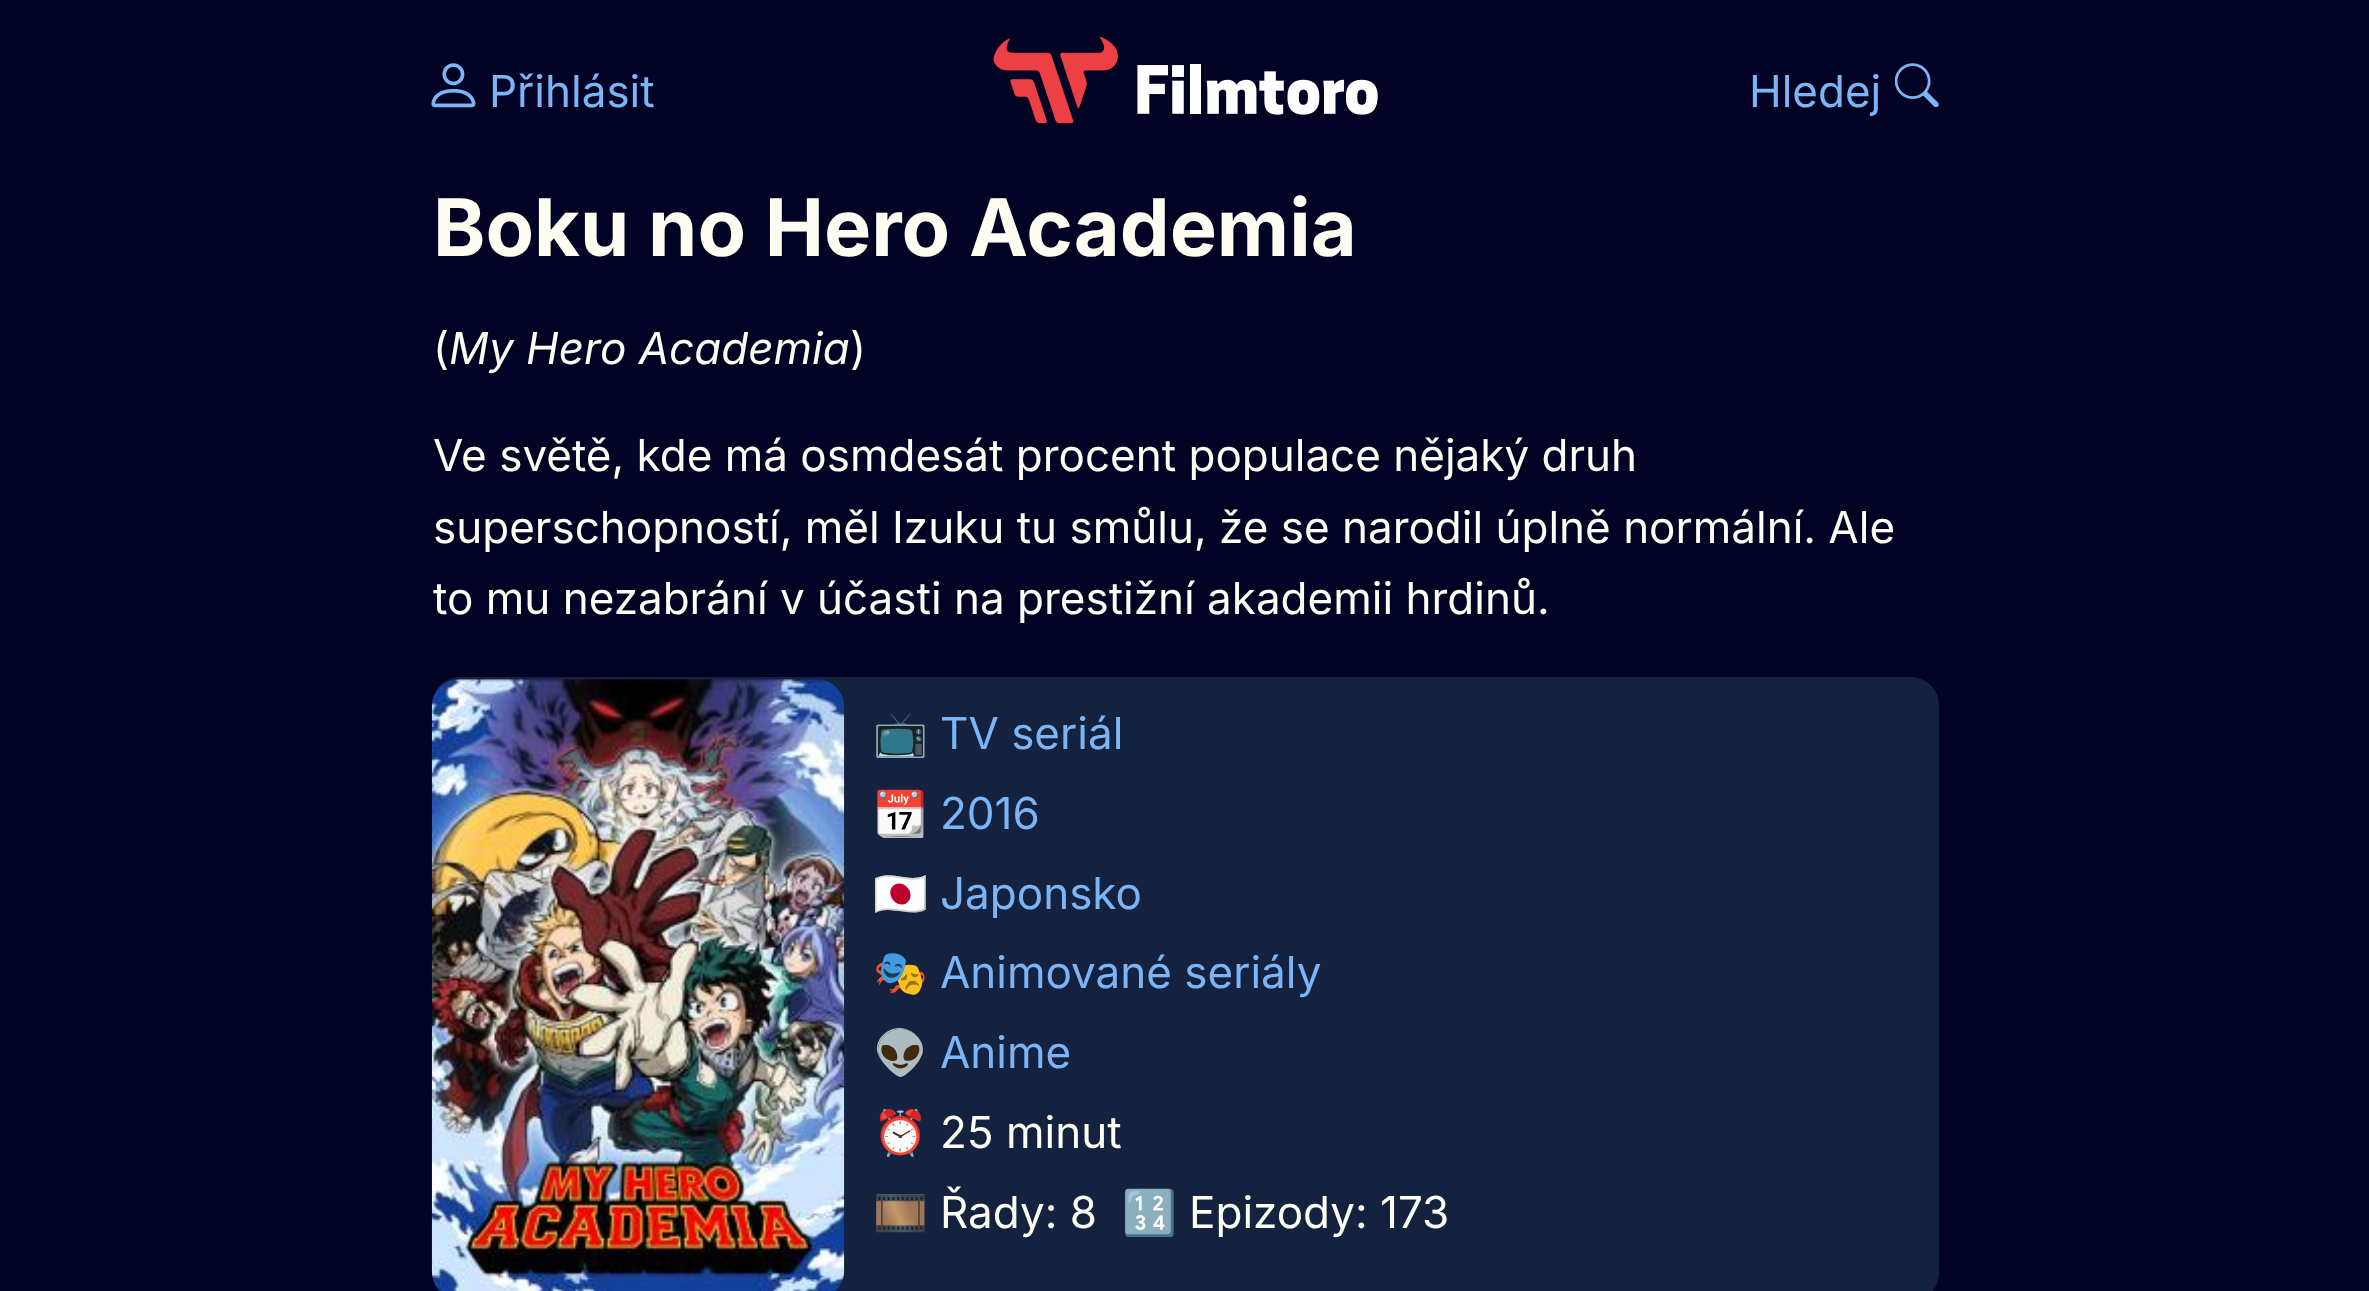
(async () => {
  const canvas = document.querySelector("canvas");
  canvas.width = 2369;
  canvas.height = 1291;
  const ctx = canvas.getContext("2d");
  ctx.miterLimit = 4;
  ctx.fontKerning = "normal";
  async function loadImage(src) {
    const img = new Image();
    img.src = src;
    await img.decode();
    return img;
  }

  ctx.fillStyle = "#020324";
  ctx.fillRect(0, 0, 2369, 1291);
  ctx.drawImage(await loadImage("img/1.png"), 431, 63, 45, 45);
  ctx.drawImage(await loadImage("img/2.png"), 993, 36, 385, 88);
  ctx.drawImage(await loadImage("img/3.png"), 1895, 63, 44, 44);
  ctx.fillStyle = "#142240";
  ctx.beginPath();
  ctx.roundRect(432, 677, 1507, 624, 28);
  ctx.fill();
  ctx.drawImage(await loadImage("img/4.png"), 431, 679, 414, 612);
  ctx.font = "44px Inter";
  ctx.fillStyle = "#7bb5f5";
  ctx.fillText("Přihlásit", 489, 107);
  ctx.fillText("Hledej", 1749, 107);
  ctx.font = "bold 79.25px Inter";
  ctx.fillStyle = "#fdfdf1";
  ctx.fillText("Boku no Hero Academia", 433, 256);
  ctx.font = "44px Inter";
  ctx.fillText("(", 433, 364);
  ctx.font = "italic 44px Inter";
  ctx.fillText("My Hero Academia", 449, 364);
  ctx.font = "44px Inter";
  for (const [text, x, y] of [
    [")", 850, 364],
    ["Ve světě, kde má osmdesát procent populace nějaký druh", 433, 471],
    ["superschopností, měl Izuku tu smůlu, že se narodil úplně normální. Ale", 433, 543],
    ["to mu nezabrání v účasti na prestižní akademii hrdinů.", 433, 614],
  ]) {
    ctx.fillText(text, x, y);
  }
  ctx.font = "44px Noto Color Emoji";
  ctx.fillText("📺", 873, 749);
  ctx.font = "44px Inter";
  ctx.fillStyle = "#7bb5f5";
  ctx.fillText("TV seriál", 940, 749);
  ctx.font = "44px Noto Color Emoji";
  ctx.fillStyle = "#fdfdf1";
  ctx.fillText("📆", 873, 829);
  ctx.font = "44px Inter";
  ctx.fillStyle = "#7bb5f5";
  ctx.fillText("2016", 940, 829);
  ctx.font = "44px Noto Color Emoji";
  ctx.fillStyle = "#fdfdf1";
  ctx.fillText("🇯🇵", 873, 909);
  ctx.font = "44px Inter";
  ctx.fillStyle = "#7bb5f5";
  ctx.fillText("Japonsko", 940, 909);
  ctx.font = "44px Noto Color Emoji";
  ctx.fillStyle = "#fdfdf1";
  ctx.fillText("🎭", 873, 988);
  ctx.font = "44px Inter";
  ctx.fillStyle = "#7bb5f5";
  ctx.fillText("Animované seriály", 940, 988);
  ctx.font = "44px Noto Color Emoji";
  ctx.fillStyle = "#fdfdf1";
  ctx.fillText("👽", 873, 1068);
  ctx.font = "44px Inter";
  ctx.fillStyle = "#7bb5f5";
  ctx.fillText("Anime", 940, 1068);
  ctx.font = "44px Noto Color Emoji";
  ctx.fillStyle = "#fdfdf1";
  ctx.fillText("⏰", 873, 1148);
  ctx.font = "44px Inter";
  ctx.fillText("25 minut", 940, 1148);
  ctx.font = "44px Noto Color Emoji";
  ctx.fillText("🎞️", 873, 1228);
  ctx.font = "44px Inter";
  ctx.fillText("Řady: 8", 940, 1228);
  ctx.font = "44px Noto Color Emoji";
  ctx.fillText("🔢", 1122, 1228);
  ctx.font = "44px Inter";
  ctx.fillText("Epizody: 173", 1189, 1228);
})();
